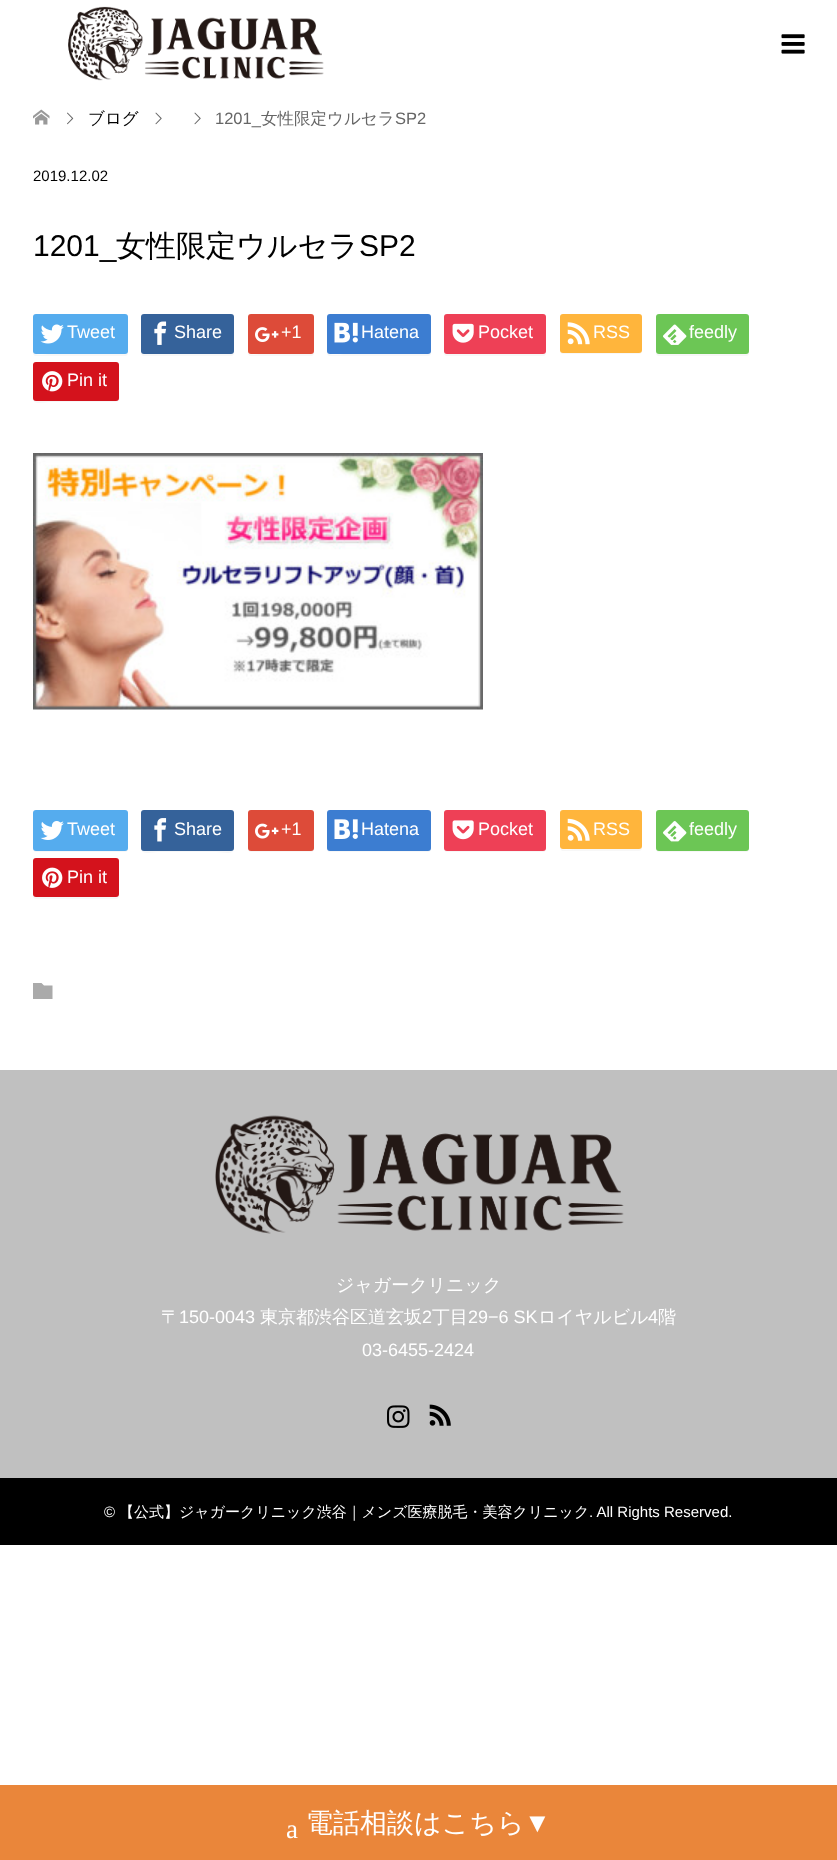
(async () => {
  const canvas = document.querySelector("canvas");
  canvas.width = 837;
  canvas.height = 1860;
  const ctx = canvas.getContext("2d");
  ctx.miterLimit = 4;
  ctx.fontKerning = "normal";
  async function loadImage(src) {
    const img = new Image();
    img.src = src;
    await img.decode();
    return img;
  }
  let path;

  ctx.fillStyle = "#ffffff";
  ctx.fillRect(0, 0, 837, 1860);
  ctx.drawImage(await loadImage("img/1.png"), 68, 6, 256, 75);
  ctx.drawImage(await loadImage("img/2.png"), 781, 34, 24, 20);
  ctx.drawImage(await loadImage("img/3.png"), 33, 109, 17, 16);
  ctx.drawImage(await loadImage("img/4.png"), 67, 112, 7, 13);
  ctx.drawImage(await loadImage("img/5.png"), 155, 112, 7, 13);
  ctx.drawImage(await loadImage("img/5.png"), 194, 112, 7, 13);
  ctx.fillStyle = "#f7f7f7";
  path = new Path2D("M33 351V353C33 355 34 356 36 356H125C127 356 128 355 128 353V318L127 316L128 345C128 347 129 354 124 354H51C44 354 33 357 33 351Z");
  ctx.fill(path);
  ctx.fillStyle = "#55acee";
  ctx.beginPath();
  ctx.roundRect(33, 314, 95, 40, 3);
  ctx.fill();
  ctx.drawImage(await loadImage("img/6.png"), 40, 324, 24, 20);
  ctx.fillStyle = "#f7f7f7";
  path = new Path2D("M141 351V353C141 355 142 356 144 356H231C233 356 234 355 234 353V351C234 353 233 354 231 354H144C142 354 141 353 141 351Z");
  ctx.fill(path);
  ctx.fillStyle = "#35629a";
  ctx.beginPath();
  ctx.roundRect(141, 314, 93, 40, 3);
  ctx.fill();
  ctx.drawImage(await loadImage("img/7.png"), 154, 321, 13, 24);
  ctx.fillStyle = "#f7f7f7";
  path = new Path2D("M248 353C248 355 249 356 251 356H311C313 356 314 355 314 353V318L313 316L314 340C314 356 316 354 300 354H260C259 354 250 356 248 353Z");
  ctx.fill(path);
  ctx.fillStyle = "#dd4b39";
  ctx.beginPath();
  ctx.roundRect(248, 314, 66, 40, 3);
  ctx.fill();
  ctx.drawImage(await loadImage("img/8.png"), 255, 327, 24, 15);
  ctx.fillStyle = "#f7f7f7";
  path = new Path2D("M327 351V353C327 355 328 356 330 356H428C430 356 431 355 431 353V318L430 316V345C430 347 432 354 428 354H346C340 354 327 357 327 351Z");
  ctx.fill(path);
  ctx.fillStyle = "#3c7dd1";
  ctx.beginPath();
  ctx.roundRect(327, 314, 104, 40, 3);
  ctx.fill();
  ctx.drawImage(await loadImage("img/9.png"), 334, 322, 24, 21);
  ctx.fillStyle = "#f7f7f7";
  path = new Path2D("M444 351V353C444 355 445 356 447 356H543C545 356 546 355 546 353V351C546 353 545 354 543 354H447C445 354 444 353 444 351Z");
  ctx.fill(path);
  ctx.fillStyle = "#ee4056";
  ctx.beginPath();
  ctx.roundRect(444, 314, 102, 40, 3);
  ctx.fill();
  ctx.drawImage(await loadImage("img/10.png"), 452, 323, 22, 20);
  ctx.fillStyle = "#f7f7f7";
  path = new Path2D("M560 351C560 353 561 354 563 354H639C641 354 642 353 642 351V350L641 352H640H575C575 352 562 355 560 351Z");
  ctx.fill(path);
  ctx.fillStyle = "#ffb53c";
  ctx.beginPath();
  ctx.roundRect(560, 314, 82, 39, 3);
  ctx.fill();
  ctx.drawImage(await loadImage("img/11.png"), 567, 322, 23, 23);
  ctx.fillStyle = "#f7f7f7";
  path = new Path2D("M656 353C656 355 657 356 659 356H746C748 356 749 355 749 353V318L748 316V351C748 353 747 354 746 354H658C657 354 657 353 656 353Z");
  ctx.fill(path);
  ctx.fillStyle = "#6cc655";
  ctx.beginPath();
  ctx.roundRect(656, 314, 93, 40, 3);
  ctx.fill();
  ctx.drawImage(await loadImage("img/12.png"), 663, 324, 24, 21);
  ctx.fillStyle = "#f7f7f7";
  path = new Path2D("M33 398C33 406 44 402 49 402H103C124 402 119 404 119 382C119 379 120 367 118 364V392C118 404 117 400 102 400H35L33 399Z");
  ctx.fill(path);
  ctx.fillStyle = "#d4121c";
  ctx.beginPath();
  ctx.roundRect(33, 362, 86, 39, 3);
  ctx.fill();
  ctx.drawImage(await loadImage("img/13.png"), 42, 371, 21, 21);
  ctx.drawImage(await loadImage("img/14.png"), 33, 453, 450, 257);
  ctx.fillStyle = "#f7f7f7";
  path = new Path2D("M33 848V849C33 851 34 852 36 852H125C127 852 128 851 128 849V815V813V848C128 849 126 850 124 850H36C34 850 33 849 33 848Z");
  ctx.fill(path);
  ctx.fillStyle = "#55acee";
  ctx.beginPath();
  ctx.roundRect(33, 810, 95, 41, 3);
  ctx.fill();
  ctx.drawImage(await loadImage("img/15.png"), 40, 821, 24, 19);
  ctx.fillStyle = "#f7f7f7";
  path = new Path2D("M141 848C141 856 153 852 158 852H216C222 852 234 856 234 848C234 849 233 850 231 850H144C142 850 141 849 141 848Z");
  ctx.fill(path);
  ctx.fillStyle = "#35629a";
  ctx.beginPath();
  ctx.roundRect(141, 810, 93, 41, 3);
  ctx.fill();
  ctx.drawImage(await loadImage("img/16.png"), 154, 818, 13, 24);
  ctx.fillStyle = "#f7f7f7";
  path = new Path2D("M248 849C248 851 249 852 251 852H311C313 852 314 851 314 849V815V813V848C314 849 312 850 310 850H250C249 850 249 850 248 849Z");
  ctx.fill(path);
  ctx.fillStyle = "#dd4b39";
  ctx.beginPath();
  ctx.roundRect(248, 810, 66, 41, 3);
  ctx.fill();
  ctx.drawImage(await loadImage("img/17.png"), 255, 823, 24, 16);
  ctx.fillStyle = "#f7f7f7";
  path = new Path2D("M327 848V849C327 851 328 852 330 852H428C430 852 431 851 431 849V815L430 813V848C430 849 429 850 428 850H330C328 850 327 849 327 848Z");
  ctx.fill(path);
  ctx.fillStyle = "#3c7dd1";
  ctx.beginPath();
  ctx.roundRect(327, 810, 104, 41, 3);
  ctx.fill();
  ctx.drawImage(await loadImage("img/18.png"), 334, 819, 24, 20);
  ctx.fillStyle = "#f7f7f7";
  path = new Path2D("M444 848V849C444 851 445 852 447 852H543C545 852 546 851 546 849V848C546 849 545 850 543 850H447C445 850 444 849 444 848Z");
  ctx.fill(path);
  ctx.fillStyle = "#ee4056";
  ctx.beginPath();
  ctx.roundRect(444, 810, 102, 41, 3);
  ctx.fill();
  ctx.drawImage(await loadImage("img/19.png"), 452, 820, 22, 20);
  ctx.fillStyle = "#f7f7f7";
  path = new Path2D("M560 848L561 850L562 851H639C642 851 642 848 642 846L641 848L640 849H575C575 849 562 851 560 848Z");
  ctx.fill(path);
  ctx.fillStyle = "#ffb53c";
  ctx.beginPath();
  ctx.roundRect(560, 810, 82, 39, 3);
  ctx.fill();
  ctx.drawImage(await loadImage("img/20.png"), 567, 818, 23, 23);
  ctx.fillStyle = "#f7f7f7";
  path = new Path2D("M656 849C656 851 657 852 659 852H746C748 852 749 851 749 849V815L748 813V848C748 849 747 850 746 850H658C657 850 657 850 656 849Z");
  ctx.fill(path);
  ctx.fillStyle = "#6cc655";
  ctx.beginPath();
  ctx.roundRect(656, 810, 93, 41, 3);
  ctx.fill();
  ctx.drawImage(await loadImage("img/21.png"), 663, 821, 24, 21);
  ctx.fillStyle = "#f7f7f7";
  path = new Path2D("M33 894V896C33 898 34 899 36 899H116C118 899 119 898 119 896V863L118 861V894C118 896 117 897 116 897H36C34 897 33 896 33 894Z");
  ctx.fill(path);
  ctx.fillStyle = "#d4121c";
  ctx.beginPath();
  ctx.roundRect(33, 858, 86, 39, 3);
  ctx.fill();
  ctx.drawImage(await loadImage("img/22.png"), 42, 867, 21, 21);
  ctx.fillStyle = "#aaaaaa";
  path = new Path2D("M41.5 983L44 985.5H52.5V999H33V983Z");
  ctx.fill(path);
  ctx.fillStyle = "#c0c0c0";
  ctx.fillRect(0, 1070, 837, 408);
  ctx.drawImage(await loadImage("img/23.png"), 215, 1115, 409, 119);
  ctx.drawImage(await loadImage("img/24.png"), 387, 1405, 23, 23);
  ctx.drawImage(await loadImage("img/25.png"), 429, 1404, 22, 22);
  ctx.fillStyle = "#000000";
  ctx.fillRect(0, 1478, 837, 67);
  ctx.fillStyle = "#ea863a";
  ctx.fillRect(0, 1785, 837, 75);
  ctx.font = "500 16.5px WenQuanYi Zen Hei";
  ctx.fillStyle = "#000000";
  ctx.fillText("ブログ", 88, 124);
  ctx.font = "16.5px Liberation Sans";
  ctx.fillStyle = "#666666";
  ctx.fillText("1201_", 215, 124);
  ctx.font = "500 16.5px WenQuanYi Zen Hei";
  ctx.fillText("女性限定ウルセラ", 261, 124);
  ctx.font = "16.5px Liberation Sans";
  ctx.fillText("SP2", 395, 124);
  ctx.font = "15px Liberation Sans";
  ctx.fillStyle = "#000000";
  ctx.fillText("2019.12.02", 33, 181);
  ctx.font = "30px Liberation Sans";
  ctx.fillText("1201_", 33, 256);
  ctx.font = "500 30px WenQuanYi Zen Hei";
  ctx.fillText("女性限定ウルセラ", 116, 256);
  ctx.font = "30px Liberation Sans";
  ctx.fillText("SP2", 359, 256);
  ctx.font = "18px Liberation Sans";
  ctx.fillStyle = "#ffffff";
  for (const [text, x, y] of [
    ["Tweet", 67, 338],
    ["Share", 174, 338],
    ["+1", 281, 338],
    ["Hatena", 361, 338],
    ["Pocket", 478, 338],
    ["RSS", 593, 338],
    ["feedly", 689, 338],
    ["Pin it", 67, 386],
    ["Tweet", 67, 835],
    ["Share", 174, 835],
    ["+1", 281, 835],
    ["Hatena", 361, 835],
    ["Pocket", 478, 835],
    ["RSS", 593, 835],
    ["feedly", 689, 835],
    ["Pin it", 67, 883],
  ]) {
    ctx.fillText(text, x, y);
  }
  ctx.font = "500 18px WenQuanYi Zen Hei";
  ctx.fillText("ジャガークリニック", 336, 1291);
  ctx.fillText("〒", 161, 1323);
  ctx.font = "18px Liberation Sans";
  ctx.fillText("150-0043", 179, 1323);
  ctx.font = "500 18px WenQuanYi Zen Hei";
  ctx.fillText("東京都渋谷区道玄坂", 260, 1323);
  ctx.font = "18px Liberation Sans";
  ctx.fillText("2", 422, 1323);
  ctx.font = "500 18px WenQuanYi Zen Hei";
  ctx.fillText("丁目", 432, 1323);
  ctx.font = "18px Liberation Sans";
  ctx.fillText("29−6 SK", 468, 1323);
  ctx.font = "500 18px WenQuanYi Zen Hei";
  ctx.fillText("ロイヤルビル", 538, 1323);
  ctx.font = "18px Liberation Sans";
  ctx.fillText("4", 648, 1323);
  ctx.font = "500 18px WenQuanYi Zen Hei";
  ctx.fillText("階", 658, 1323);
  ctx.font = "18px Liberation Sans";
  ctx.fillText("03-6455-2424", 362, 1356);
  ctx.font = "15px Liberation Sans";
  ctx.fillText("©", 104, 1517);
  ctx.font = "500 15px WenQuanYi Zen Hei";
  ctx.fillText("【公式】ジャガークリニック渋谷｜メンズ医療脱毛・美容クリニック", 119, 1517);
  ctx.font = "15px Liberation Sans";
  ctx.fillText(". All Rights Reserved.", 589, 1517);
  ctx.font = "27px Liberation Serif";
  ctx.fillText("a", 286, 1838);
  ctx.font = "500 27px WenQuanYi Zen Hei";
  ctx.fillText("電話相談はこちら", 306, 1832);
  ctx.font = "27px Liberation Sans";
  ctx.fillText("▼", 524, 1832);
})();
